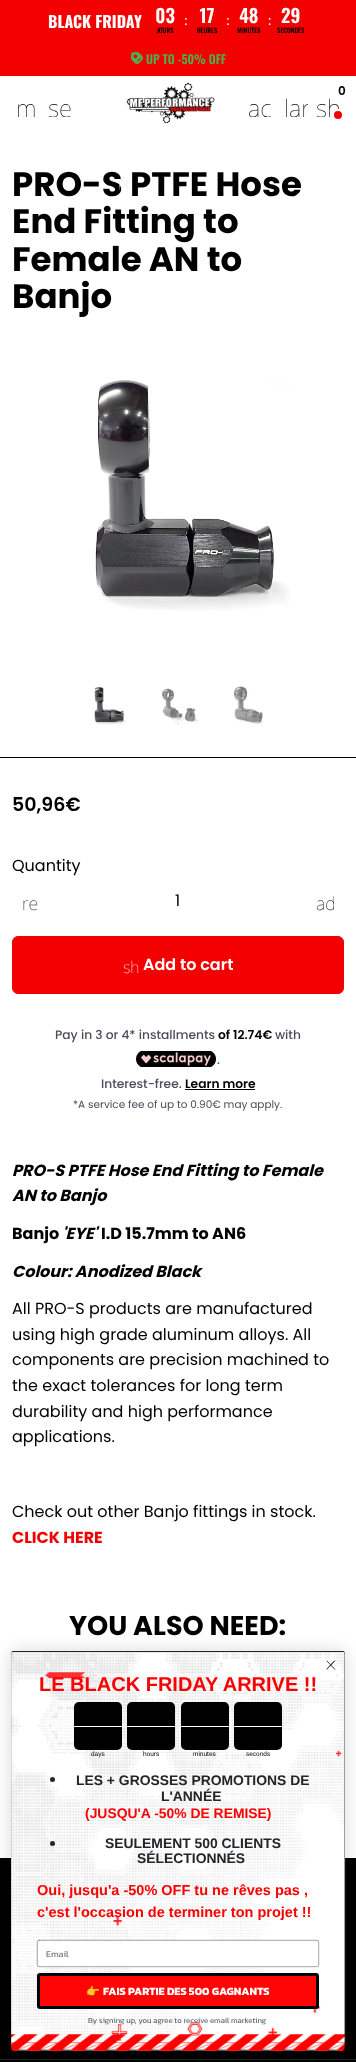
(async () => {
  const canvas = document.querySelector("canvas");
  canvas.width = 356;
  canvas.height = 2062;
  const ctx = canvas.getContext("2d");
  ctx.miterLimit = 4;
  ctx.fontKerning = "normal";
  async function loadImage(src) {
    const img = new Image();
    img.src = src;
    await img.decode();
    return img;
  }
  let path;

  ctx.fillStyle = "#ffffff";
  ctx.fillRect(0, 0, 356, 2062);
  ctx.fillStyle = "#f20100";
  ctx.fillRect(0, 0, 356, 76);
  ctx.drawImage(await loadImage("img/1.png"), 156, 7, 149, 27);
  ctx.drawImage(await loadImage("img/2.png"), 131, 52, 12, 12);
  ctx.drawImage(await loadImage("img/3.png"), 126, 82, 89, 42);
  ctx.drawImage(await loadImage("img/4.png"), 95, 380, 195, 231);
  ctx.drawImage(await loadImage("img/5.png"), 94, 687, 32, 38);
  ctx.drawImage(await loadImage("img/6.png"), 161, 688, 38, 37);
  ctx.drawImage(await loadImage("img/7.png"), 234, 686, 30, 39);
  ctx.fillStyle = "#000000";
  ctx.fillRect(0, 757, 356, 1);
  ctx.fillStyle = "#f20100";
  ctx.beginPath();
  ctx.roundRect(12.5, 936.5, 331, 57, 5.5);
  ctx.fill();
  ctx.strokeStyle = "#f20100";
  ctx.stroke();
  ctx.drawImage(await loadImage("img/8.png"), 136, 1051, 80, 16);
  for (const [x, y, w, h, color] of [
    [185, 1089, 70, 1, "#000000"],
    [0, 1858, 356, 204, "#000000"],
    [0, 2059, 356, 1, "#212529"],
  ]) {
    ctx.fillStyle = color;
    ctx.fillRect(x, y, w, h);
  }
  ctx.fillStyle = "rgba(0, 0, 0, 0.15)";
  ctx.filter = "blur(8.5px)";
  ctx.beginPath();
  ctx.roundRect(11, 1651, 334, 400, 3);
  ctx.fill();
  ctx.filter = "none";
  ctx.fillStyle = "#060606";
  ctx.beginPath();
  ctx.roundRect(11, 1651, 334, 400, 3);
  ctx.fill();
  ctx.drawImage(await loadImage("img/9.png"), 11, 1651, 335, 400);
  path = new Path2D("M327 1661L334.5 1669M327 1669L334.5 1661Z");
  ctx.strokeStyle = "#373f47";
  ctx.lineCap = "round";
  ctx.lineJoin = "round";
  ctx.stroke(path);
  ctx.fillStyle = "#000000";
  ctx.beginPath();
  ctx.roundRect(74, 1702, 48, 24, [5, 5, 0, 0]);
  ctx.fill();
  ctx.beginPath();
  ctx.roundRect(74, 1726, 48, 24, [0, 0, 5, 5]);
  ctx.fill();
  ctx.fillStyle = "#ffffff";
  ctx.beginPath();
  ctx.roundRect(74, 1726, 48, 1, 0.5);
  ctx.fill();
  ctx.fillStyle = "#000000";
  ctx.beginPath();
  ctx.roundRect(127, 1702, 48, 24, [5, 5, 0, 0]);
  ctx.fill();
  ctx.beginPath();
  ctx.roundRect(127, 1726, 48, 24, [0, 0, 5, 5]);
  ctx.fill();
  ctx.fillStyle = "#ffffff";
  ctx.beginPath();
  ctx.roundRect(127, 1726, 48, 1, 0.5);
  ctx.fill();
  ctx.fillStyle = "#000000";
  ctx.beginPath();
  ctx.roundRect(181, 1702, 48, 24, [5, 5, 0, 0]);
  ctx.fill();
  ctx.beginPath();
  ctx.roundRect(181, 1726, 48, 24, [0, 0, 5, 5]);
  ctx.fill();
  ctx.fillStyle = "#ffffff";
  ctx.beginPath();
  ctx.roundRect(181, 1726, 48, 1, 0.5);
  ctx.fill();
  ctx.fillStyle = "#000000";
  ctx.beginPath();
  ctx.roundRect(234, 1702, 48, 24, [5, 5, 0, 0]);
  ctx.fill();
  ctx.beginPath();
  ctx.roundRect(234, 1726, 48, 24, [0, 0, 5, 5]);
  ctx.fill();
  ctx.fillStyle = "#ffffff";
  ctx.beginPath();
  ctx.roundRect(234, 1726, 48, 1, 0.5);
  ctx.fill();
  ctx.fillStyle = "#232528";
  ctx.beginPath();
  ctx.arc(52.5, 1779.5, 2.5, 0, Math.PI * 2);
  ctx.fill();
  ctx.beginPath();
  ctx.arc(52.5, 1843.5, 2.5, 0, Math.PI * 2);
  ctx.fill();
  ctx.fillStyle = "#ffffff";
  ctx.beginPath();
  ctx.roundRect(37.3, 1940.3, 281.4, 26.4, 1.7);
  ctx.fill();
  ctx.strokeStyle = "#606a72";
  ctx.lineWidth = 0.6;
  ctx.lineJoin = "miter";
  ctx.stroke();
  ctx.fillStyle = "#ff0505";
  ctx.beginPath();
  ctx.roundRect(38.5, 1974.5, 279, 33, 1.5);
  ctx.fill();
  ctx.strokeStyle = "#010101";
  ctx.lineWidth = 3;
  ctx.stroke();
  ctx.font = "bold 16px Oswald";
  ctx.fillStyle = "#ffffff";
  ctx.fillText("BLACK FRIDAY", 48, 28);
  ctx.font = "600 12px Oswald";
  ctx.fillStyle = "#4caf50";
  ctx.fillText("UP TO -50% OFF", 146, 64);
  ctx.font = "100 24px Noto Sans";
  ctx.fillStyle = "#000000";
  ctx.fillText("m", 16, 117);
  ctx.save();
  ctx.beginPath();
  ctx.rect(48, 93, 24, 24);
  ctx.clip();
  ctx.fillText("se", 48, 117);
  ctx.restore();
  ctx.save();
  ctx.beginPath();
  ctx.rect(248, 93, 24, 24);
  ctx.clip();
  ctx.fillText("ac", 248, 117);
  ctx.restore();
  ctx.save();
  ctx.beginPath();
  ctx.rect(284, 93, 24, 24);
  ctx.clip();
  ctx.fillText("lan", 284, 117);
  ctx.restore();
  ctx.font = "600 12px Poppins";
  ctx.fillText("0", 338, 95);
  ctx.save();
  ctx.beginPath();
  ctx.rect(316, 93, 24, 24);
  ctx.clip();
  ctx.font = "100 24px Noto Sans";
  ctx.fillText("sh", 316, 117);
  ctx.restore();
  ctx.fillStyle = "#f20100";
  ctx.beginPath();
  ctx.arc(338, 115, 5, 0, Math.PI * 2);
  ctx.fill();
  ctx.strokeStyle = "#ffffff";
  ctx.lineWidth = 2;
  ctx.stroke();
  ctx.font = "bold 34px Poppins";
  ctx.fillStyle = "#000000";
  ctx.fillText("PRO-S PTFE Hose", 12, 196);
  ctx.save();
  ctx.beginPath();
  ctx.rect(118, 172, 12, 18);
  ctx.clip();
  ctx.font = "100 12px Noto Sans";
  ctx.fillStyle = "#e0e0e0";
  ctx.fillText("pe", 118, 187);
  ctx.restore();
  for (const [text, x, y] of [
    ["End Fitting to", 12, 233],
    ["Female AN to", 12, 271],
    ["Banjo", 12, 308],
  ]) {
    ctx.fillText(text, x, y);
  }
  ctx.font = "600 19px Poppins";
  ctx.fillText("50,96€", 12, 811);
  ctx.font = "16px Poppins";
  ctx.fillText("Quantity", 12, 871);
  ctx.font = "100 18px Noto Sans";
  ctx.fillText("re", 22, 910);
  ctx.font = "16px Poppins";
  ctx.fillText("1", 175, 906);
  ctx.save();
  ctx.beginPath();
  ctx.rect(316, 883, 18, 36);
  ctx.clip();
  ctx.font = "100 18px Noto Sans";
  ctx.fillText("ad", 316, 910);
  ctx.restore();
  ctx.font = "100 16px Noto Sans";
  ctx.fillStyle = "#ffffff";
  ctx.fillText("sh", 123, 973);
  ctx.font = "600 16px Poppins";
  ctx.fillText("Add to cart", 143, 970);
  ctx.font = "500 12.25px Poppins";
  ctx.fillStyle = "#4a4d5a";
  ctx.fillText("Pay in 3 or 4* installments", 55, 1039);
  ctx.font = "600 12.25px Poppins";
  ctx.fillStyle = "#000000";
  ctx.fillText("of 12.74€", 218, 1039);
  ctx.font = "500 12.25px Poppins";
  ctx.fillStyle = "#4a4d5a";
  for (const [text, x, y] of [
    ["with", 275, 1039],
    [".", 217, 1064],
    ["Interest-free.", 101, 1088],
  ]) {
    ctx.fillText(text, x, y);
  }
  ctx.font = "600 12.25px Poppins";
  ctx.fillStyle = "#000000";
  ctx.fillText("Learn more", 185, 1088);
  ctx.font = "10.5px Poppins";
  ctx.fillStyle = "#4a4d5a";
  ctx.fillText("*A service fee of up to 0.90€ may apply.", 73, 1108);
  ctx.font = "italic bold 16px Poppins";
  ctx.fillStyle = "#000000";
  ctx.fillText("PRO-S PTFE Hose End Fitting to Female", 12, 1176);
  ctx.fillText("AN to Banjo", 12, 1201);
  ctx.font = "bold 16px Poppins";
  ctx.fillText("Banjo", 12, 1239);
  ctx.font = "italic bold 16px Poppins";
  ctx.fillText("'EYE'", 62, 1239);
  ctx.font = "bold 16px Poppins";
  ctx.fillText("I.D 15.7mm to AN6", 101, 1239);
  ctx.font = "italic bold 16px Poppins";
  ctx.fillText("Colour: Anodized Black", 12, 1277);
  ctx.font = "16px Poppins";
  for (const [text, x, y] of [
    ["All PRO-S products are manufactured", 12, 1314],
    ["using high grade aluminum alloys. All", 12, 1340],
    ["components are precision machined to", 12, 1365],
    ["the exact tolerances for long term", 12, 1391],
    ["durability and high performance", 12, 1417],
    ["applications.", 12, 1442],
    ["Check out other Banjo fittings in stock.", 12, 1517],
  ]) {
    ctx.fillText(text, x, y);
  }
  ctx.font = "bold 16px Poppins";
  ctx.fillStyle = "#f20100";
  ctx.fillText("CLICK HERE", 12, 1543);
  ctx.font = "bold 27px Poppins";
  ctx.fillStyle = "#000000";
  ctx.fillText("YOU ALSO NEED:", 69, 1635);
  ctx.font = "bold 20px Liberation Sans";
  ctx.fillStyle = "#fb0000";
  ctx.fillText("LE BLACK FRIDAY ARRIVE !!", 39, 1691);
  ctx.font = "6.5px Liberation Sans";
  ctx.fillStyle = "#000000";
  for (const [text, x, y] of [
    ["days", 91, 1756],
    ["hours", 143, 1756],
    ["minutes", 193, 1756],
    ["seconds", 246, 1756],
  ]) {
    ctx.fillText(text, x, y);
  }
  ctx.font = "bold 13.9px Liberation Sans";
  ctx.fillStyle = "#232528";
  ctx.fillText("LES + GROSSES PROMOTIONS DE", 76, 1785);
  ctx.fillText("L'ANNÉE", 161, 1801);
  ctx.fillStyle = "#fb0000";
  ctx.fillText("(JUSQU'A -50% DE REMISE)", 85, 1818);
  ctx.fillStyle = "#232528";
  ctx.fillText("SEULEMENT 500 CLIENTS", 105, 1848);
  ctx.fillText("SÉLECTIONNÉS", 137, 1863);
  ctx.font = "bold 14.5px Liberation Sans";
  ctx.fillStyle = "#fb0000";
  ctx.fillText("Oui, jusqu'a -50% OFF tu ne rêves pas ,", 37, 1895);
  ctx.fillText("c'est l'occasion de terminer ton projet !!", 37, 1917);
  ctx.font = "9px Kanit";
  ctx.fillStyle = "#767676";
  ctx.fillText("Email", 46, 1957);
  ctx.font = "bold 11.1px Noto Color Emoji";
  ctx.fillStyle = "#ffffff";
  ctx.fillText("👉", 86, 1995);
  ctx.font = "bold 11.1px Kanit";
  ctx.fillText("FAIS PARTIE DES 500 GAGNANTS", 103, 1995);
  ctx.font = "7.75px Kanit";
  ctx.fillStyle = "#606a72";
  ctx.fillText("By signing up, you agree to receive email marketing", 88, 2023);
})();
